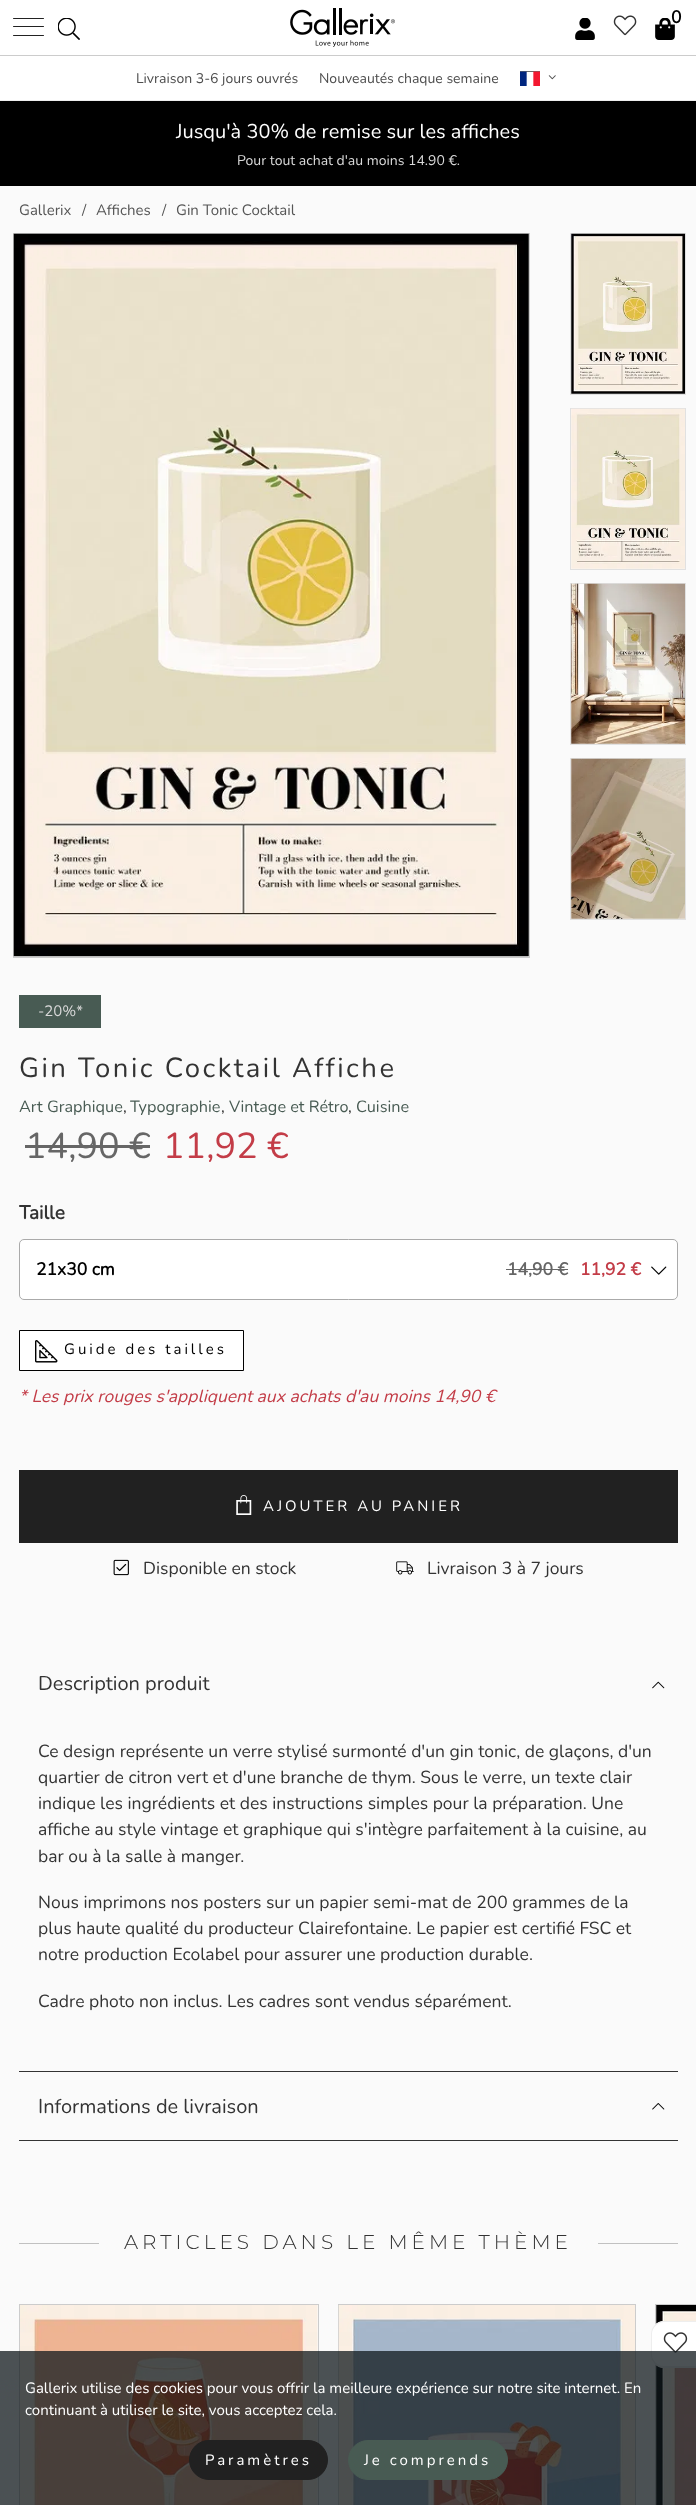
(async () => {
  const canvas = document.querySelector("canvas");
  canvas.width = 696;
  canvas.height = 2505;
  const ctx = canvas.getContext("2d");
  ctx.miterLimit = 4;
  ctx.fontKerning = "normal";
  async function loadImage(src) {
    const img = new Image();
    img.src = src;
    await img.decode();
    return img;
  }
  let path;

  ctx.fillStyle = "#fafafa";
  ctx.fillRect(0, 0, 696, 2505);
  ctx.fillStyle = "#ffffff";
  ctx.fillRect(0, 0, 696, 55);
  ctx.fillStyle = "#cccccc";
  ctx.fillRect(0, 55, 696, 1);
  ctx.fillStyle = "#222222";
  ctx.beginPath();
  ctx.roundRect(13, 18, 31, 1, 0.5);
  ctx.fill();
  ctx.beginPath();
  ctx.roundRect(13, 26, 31, 1, 0.5);
  ctx.fill();
  ctx.beginPath();
  ctx.roundRect(13, 35, 31, 1, 0.5);
  ctx.fill();
  ctx.drawImage(await loadImage("img/1.png"), 58, 18, 22, 22);
  ctx.drawImage(await loadImage("img/2.png"), 290, 8, 105, 39);
  ctx.drawImage(await loadImage("img/3.png"), 575, 18, 20, 22);
  ctx.drawImage(await loadImage("img/4.png"), 613, 15, 24, 21);
  ctx.drawImage(await loadImage("img/5.png"), 655, 18, 20, 22);
  ctx.fillStyle = "#ffffff";
  ctx.fillRect(0, 56, 696, 44);
  ctx.fillStyle = "#eeeeee";
  ctx.fillRect(0, 100, 696, 1);
  ctx.fillStyle = "#000000";
  ctx.filter = "blur(0.5px)";
  ctx.beginPath();
  ctx.rect(520, 71, 20, 15);
  ctx.fill();
  ctx.filter = "none";
  ctx.drawImage(await loadImage("img/6.png"), 520, 71, 20, 15);
  ctx.drawImage(await loadImage("img/7.png"), 548, 75, 8, 5);
  ctx.fillRect(0, 101, 696, 85);
  ctx.strokeStyle = "#cccccc";
  ctx.strokeRect(13.5, 233.5, 516, 724);
  ctx.drawImage(await loadImage("img/8.png"), 13, 233, 516, 724);
  ctx.strokeStyle = "#e1e1e1";
  ctx.strokeRect(570.5, 233.5, 115, 161);
  ctx.drawImage(await loadImage("img/9.png"), 571, 233, 114, 161);
  ctx.strokeRect(570.5, 408.5, 115, 161);
  ctx.drawImage(await loadImage("img/10.png"), 571, 408, 114, 161);
  ctx.strokeRect(570.5, 583.5, 115, 161);
  ctx.drawImage(await loadImage("img/11.png"), 571, 583, 114, 161);
  ctx.strokeRect(570.5, 758.5, 115, 161);
  ctx.drawImage(await loadImage("img/12.png"), 571, 758, 114, 161);
  ctx.fillStyle = "#485b53";
  ctx.fillRect(19, 995, 82, 33);
  ctx.fillStyle = "#666666";
  ctx.fillRect(25, 1145, 125, 3);
  ctx.fillStyle = "#ffffff";
  ctx.beginPath();
  ctx.roundRect(19.5, 1239.5, 658, 60, 4.5);
  ctx.fill();
  ctx.strokeStyle = "#aaaaaa";
  ctx.stroke();
  ctx.fillStyle = "#666666";
  ctx.fillRect(506, 1269, 62, 1);
  ctx.drawImage(await loadImage("img/13.png"), 651, 1266, 16, 9);
  ctx.fillStyle = "#ffffff";
  ctx.beginPath();
  ctx.rect(19.5, 1330.5, 224, 40);
  ctx.fill();
  ctx.strokeStyle = "#000000";
  ctx.stroke();
  ctx.drawImage(await loadImage("img/14.png"), 35, 1340, 23, 23);
  ctx.fillStyle = "#212121";
  ctx.fillRect(19, 1470, 659, 73);
  ctx.drawImage(await loadImage("img/15.png"), 236, 1495, 16, 20);
  ctx.drawImage(await loadImage("img/16.png"), 113, 1559, 16, 17);
  ctx.drawImage(await loadImage("img/17.png"), 396, 1561, 18, 14);
  ctx.drawImage(await loadImage("img/18.png"), 652, 1681, 13, 8);
  ctx.fillStyle = "#333333";
  ctx.fillRect(19, 2071, 659, 1);
  ctx.fillRect(19, 2140, 659, 1);
  ctx.drawImage(await loadImage("img/19.png"), 652, 2103, 13, 7);
  ctx.strokeStyle = "#cccccc";
  ctx.strokeRect(655.5, 2304.5, 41, 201);
  ctx.drawImage(await loadImage("img/23.png"), 656, 2305, 40, 200);
  ctx.fillStyle = "#ffffff";
  path = new Path2D("M664 2321H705V2368H664C657 2368 651 2362 651 2355V2334C651 2327 657 2321 664 2321Z");
  ctx.fill(path);
  ctx.fillStyle = "#eeeeee";
  path = new Path2D("M664 2321H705V2368H664C657 2368 651 2362 651 2355V2334C651 2327 657 2321 664 2321ZM664 2322H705V2366H664C658 2366 652 2361 652 2355V2334C652 2328 658 2322 664 2322Z");
  ctx.fill(path, "evenodd");
  ctx.drawImage(await loadImage("img/20.png"), 663, 2332, 25, 21);
  ctx.fillStyle = "#c1c1c1";
  ctx.fillRect(19, 2243, 659, 1);
  ctx.fillStyle = "#fafafa";
  ctx.fillRect(99, 2243, 499, 1);
  ctx.strokeRect(19.5, 2304.5, 299, 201);
  ctx.drawImage(await loadImage("img/21.png"), 20, 2305, 298, 200);
  ctx.strokeRect(338.5, 2304.5, 297, 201);
  ctx.drawImage(await loadImage("img/22.png"), 338, 2305, 297, 200);
  ctx.fillStyle = "rgba(16, 24, 28, 0.75)";
  ctx.fillRect(0, 2351, 696, 154);
  ctx.fillStyle = "#212121";
  ctx.beginPath();
  ctx.roundRect(189.5, 2440.5, 138, 39, 19.5);
  ctx.fill();
  ctx.strokeStyle = "#212121";
  ctx.stroke();
  ctx.fillStyle = "#485b53";
  ctx.beginPath();
  ctx.roundRect(348.5, 2440.5, 159, 39, 19.5);
  ctx.fill();
  ctx.strokeStyle = "#485b53";
  ctx.stroke();
  ctx.font = "bold 17.5px Nunito";
  ctx.fillStyle = "#000000";
  ctx.fillText("0", 671, 23);
  ctx.font = "14px Nunito";
  ctx.fillStyle = "#4d4d4d";
  ctx.fillText("Livraison 3-6 jours ouvrés", 136, 83);
  ctx.fillText("Nouveautés chaque semaine", 319, 83);
  ctx.font = "20px Nunito";
  ctx.fillStyle = "#ffffff";
  ctx.fillText("Jusqu'à 30% de remise sur les affiches", 176, 138);
  ctx.font = "14px Nunito";
  ctx.fillStyle = "#d9d9d9";
  ctx.fillText("Pour tout achat d'au moins 14.90 €.", 237, 165);
  ctx.font = "15px Nunito";
  ctx.fillStyle = "#565656";
  for (const [text, x, y] of [
    ["Gallerix", 19, 215],
    ["/", 82, 215],
    ["Affiches", 96, 215],
    ["/", 162, 215],
    ["Gin Tonic Cocktail", 176, 215],
  ]) {
    ctx.fillText(text, x, y);
  }
  ctx.fillStyle = "#d9d9d9";
  ctx.fillText("-20%*", 38, 1016);
  ctx.letterSpacing = "2.5px";
  ctx.font = "27.5px Nunito";
  ctx.fillStyle = "#333333";
  ctx.fillText("Gin Tonic Cocktail Affiche", 19, 1077);
  ctx.letterSpacing = "0px";
  ctx.font = "16.25px Nunito";
  ctx.fillStyle = "#485b53";
  ctx.fillText("Art Graphique", 19, 1112);
  ctx.fillStyle = "#333333";
  ctx.fillText(",", 123, 1112);
  ctx.fillStyle = "#485b53";
  ctx.fillText("Typographie", 130, 1112);
  ctx.fillStyle = "#333333";
  ctx.fillText(",", 221, 1112);
  ctx.fillStyle = "#485b53";
  ctx.fillText("Vintage et Rétro", 229, 1112);
  ctx.fillStyle = "#333333";
  ctx.fillText(",", 348, 1112);
  ctx.fillStyle = "#485b53";
  ctx.fillText("Cuisine", 356, 1112);
  ctx.font = "36px Nunito";
  ctx.fillStyle = "#666666";
  ctx.fillText("14,90 €", 25, 1158);
  ctx.fillStyle = "#c33c47";
  ctx.fillText("11,92 €", 163, 1158);
  ctx.font = "bold 19px Nunito";
  ctx.fillStyle = "#333333";
  ctx.fillText("Taille", 19, 1219);
  ctx.font = "bold 17.5px Nunito";
  ctx.fillStyle = "#000000";
  ctx.fillText("21x30 cm", 36, 1275);
  ctx.fillStyle = "#666666";
  ctx.fillText("14,90 €", 507, 1275);
  ctx.fillStyle = "#c33c47";
  ctx.fillText("11,92 €", 580, 1275);
  ctx.letterSpacing = "3px";
  ctx.font = "15px Nunito";
  ctx.fillStyle = "#000000";
  ctx.fillText("Guide des tailles", 64, 1354);
  ctx.letterSpacing = "0px";
  ctx.font = "italic 17.5px Nunito";
  ctx.fillStyle = "#c33c47";
  ctx.fillText("* Les prix rouges s'appliquent aux achats d'au moins 14,90 €", 19, 1402);
  ctx.letterSpacing = "3px";
  ctx.font = "15px Nunito";
  ctx.fillStyle = "#ffffff";
  ctx.fillText("AJOUTER AU PANIER", 263, 1511);
  ctx.letterSpacing = "0px";
  ctx.font = "17.5px Nunito";
  ctx.fillStyle = "#333333";
  ctx.fillText("Disponible en stock", 143, 1574);
  ctx.fillText("Livraison 3 à 7 jours", 427, 1574);
  ctx.font = "20px Nunito";
  ctx.fillText("Description produit", 38, 1690);
  ctx.font = "17.5px Nunito";
  for (const [text, x, y] of [
    ["Ce design représente un verre stylisé surmonté d'un gin tonic, de glaçons, d'un", 38, 1757],
    ["quartier de citron vert et d'une branche de thym. Sous le verre, un texte clair", 38, 1783],
    ["indique les ingrédients et des instructions simples pour la préparation. Une", 38, 1809],
    ["affiche au style vintage et graphique qui s'intègre parfaitement à la cuisine, au", 38, 1835],
    ["bar ou à la salle à manger.", 38, 1862],
    ["Nous imprimons nos posters sur un papier semi-mat de 200 grammes de la", 38, 1908],
    ["plus haute qualité du producteur Clairefontaine. Le papier est certifié FSC et", 38, 1934],
    ["notre production Ecolabel pour assurer une production durable.", 38, 1960],
    ["Cadre photo non inclus. Les cadres sont vendus séparément.", 38, 2007],
  ]) {
    ctx.fillText(text, x, y);
  }
  ctx.font = "20px Nunito";
  ctx.fillText("Informations de livraison", 38, 2113);
  ctx.letterSpacing = "4px";
  ctx.font = "300 20px Montserrat";
  ctx.fillText("ARTICLES DANS LE MÊME THÈME", 124, 2249);
  ctx.letterSpacing = "0px";
  ctx.font = "15px Nunito";
  ctx.fillStyle = "#ffffff";
  ctx.fillText("Gallerix utilise des cookies pour vous offrir la meilleure expérience sur notre site internet. En", 25, 2393);
  ctx.fillText("continuant à utiliser le site, vous acceptez cela.", 25, 2415);
  ctx.letterSpacing = "3px";
  ctx.fillText("Paramètres", 205, 2465);
  ctx.fillText("Je comprends", 364, 2465);
})();
